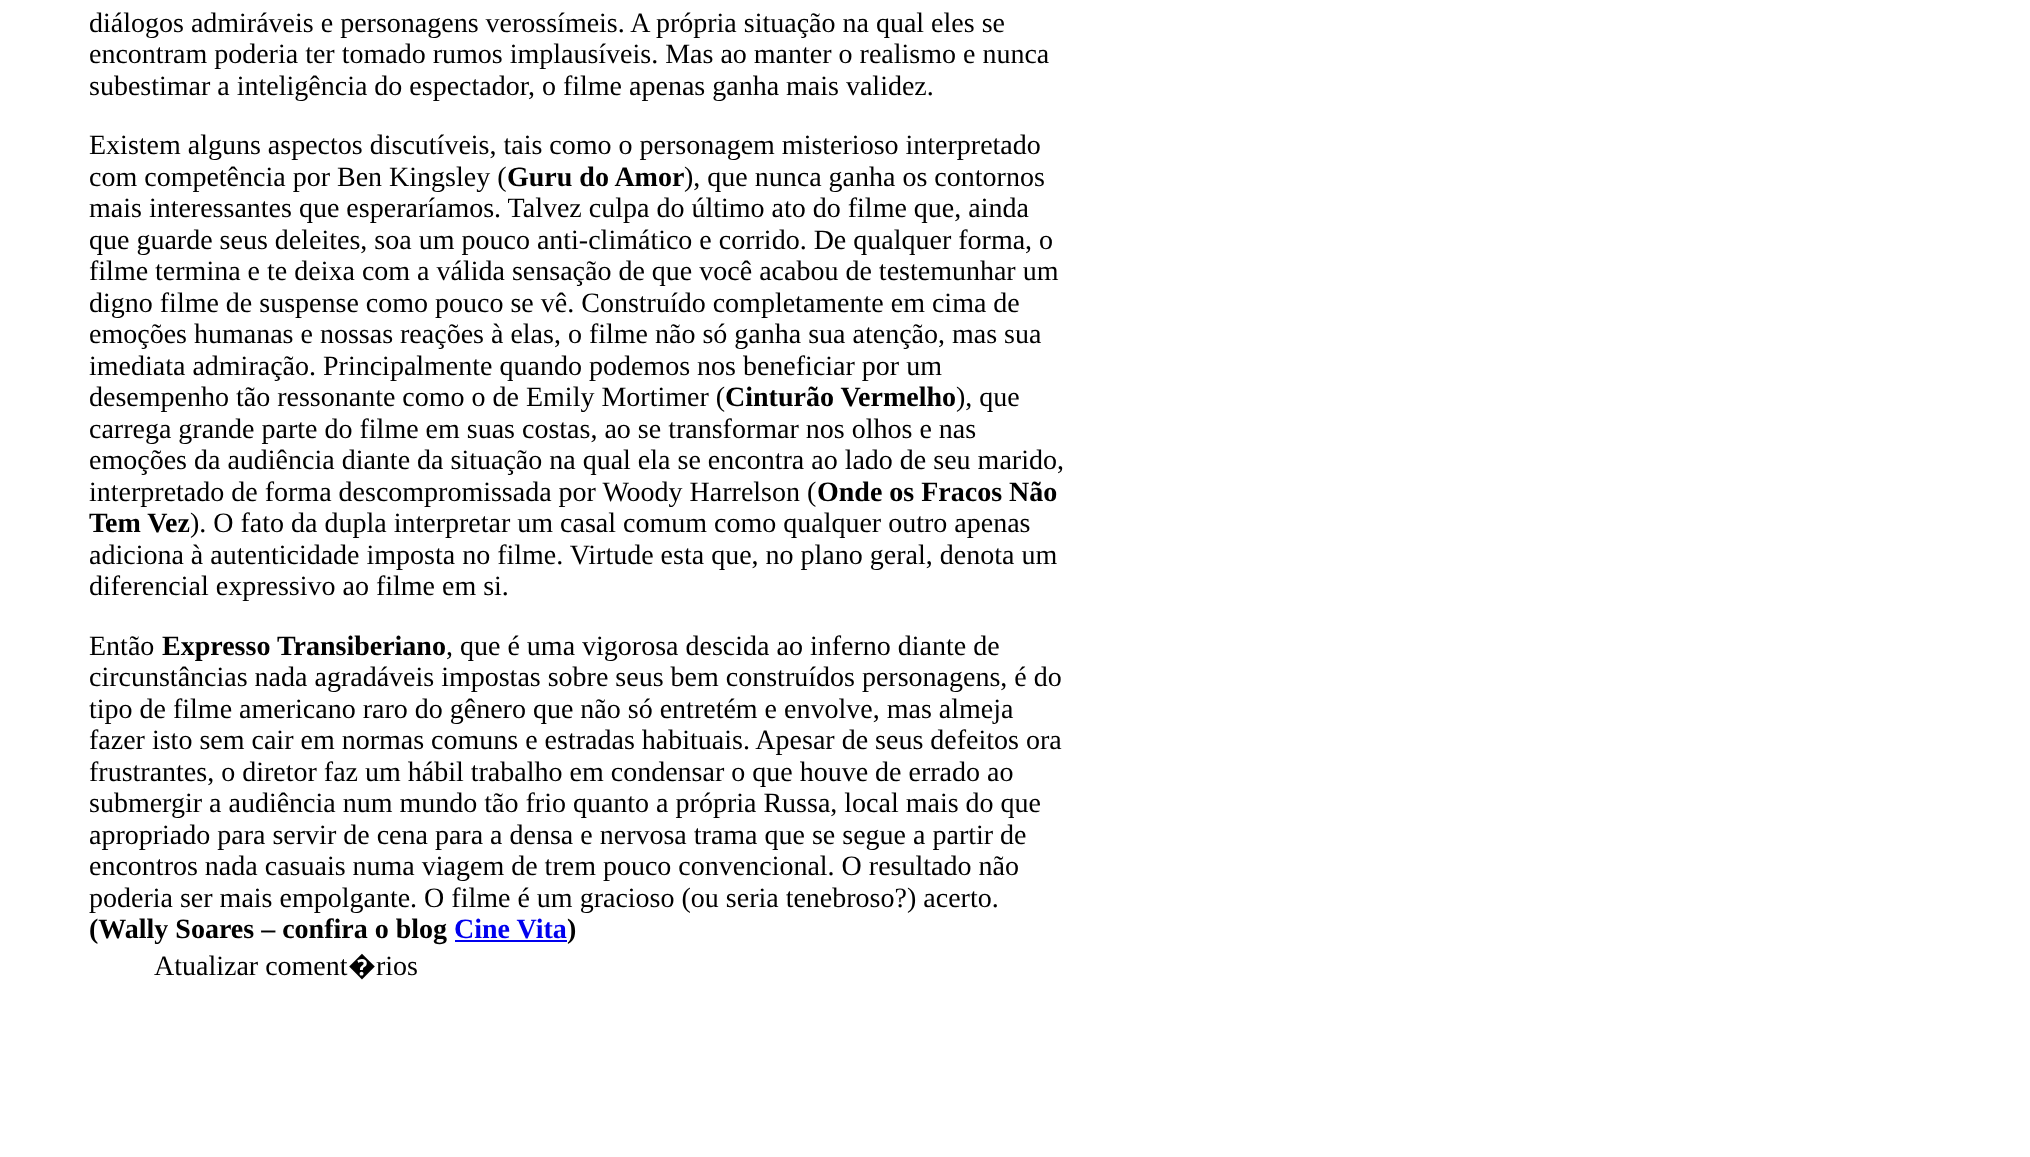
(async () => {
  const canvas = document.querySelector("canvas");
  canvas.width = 2030;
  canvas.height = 1157;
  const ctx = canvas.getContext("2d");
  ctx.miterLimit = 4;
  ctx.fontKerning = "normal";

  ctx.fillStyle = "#ffffff";
  ctx.fillRect(0, 0, 2030, 1157);
  ctx.fillStyle = "#0000ee";
  ctx.fillRect(455, 940, 112, 2);
  ctx.font = "28px Liberation Serif";
  ctx.fillStyle = "#000000";
  for (const [text, x, y] of [
    ["diálogos admiráveis e personagens verossímeis. A própria situação na qual eles se", 89, 32],
    ["encontram poderia ter tomado rumos implausíveis. Mas ao manter o realismo e nunca", 89, 63],
    ["subestimar a inteligência do espectador, o filme apenas ganha mais validez.", 89, 95],
    ["Existem alguns aspectos discutíveis, tais como o personagem misterioso interpretado", 89, 154],
    ["com competência por Ben Kingsley (", 89, 186],
  ]) {
    ctx.fillText(text, x, y);
  }
  ctx.font = "bold 28px Liberation Serif";
  ctx.fillText("Guru do Amor", 507, 186);
  ctx.font = "28px Liberation Serif";
  for (const [text, x, y] of [
    ["), que nunca ganha os contornos", 684, 186],
    ["mais interessantes que esperaríamos. Talvez culpa do último ato do filme que, ainda", 89, 217],
    ["que guarde seus deleites, soa um pouco anti-climático e corrido. De qualquer forma, o", 89, 249],
    ["filme termina e te deixa com a válida sensação de que você acabou de testemunhar um", 89, 280],
    ["digno filme de suspense como pouco se vê. Construído completamente em cima de", 89, 312],
    ["emoções humanas e nossas reações à elas, o filme não só ganha sua atenção, mas sua", 89, 343],
    ["imediata admiração. Principalmente quando podemos nos beneficiar por um", 89, 375],
    ["desempenho tão ressonante como o de Emily Mortimer (", 89, 406],
  ]) {
    ctx.fillText(text, x, y);
  }
  ctx.font = "bold 28px Liberation Serif";
  ctx.fillText("Cinturão Vermelho", 725, 406);
  ctx.font = "28px Liberation Serif";
  for (const [text, x, y] of [
    ["), que", 956, 406],
    ["carrega grande parte do filme em suas costas, ao se transformar nos olhos e nas", 89, 438],
    ["emoções da audiência diante da situação na qual ela se encontra ao lado de seu marido,", 89, 469],
    ["interpretado de forma descompromissada por Woody Harrelson (", 89, 501],
  ]) {
    ctx.fillText(text, x, y);
  }
  ctx.font = "bold 28px Liberation Serif";
  ctx.fillText("Onde os Fracos Não", 817, 501);
  ctx.fillText("Tem Vez", 89, 532);
  ctx.font = "28px Liberation Serif";
  for (const [text, x, y] of [
    ["). O fato da dupla interpretar um casal comum como qualquer outro apenas", 190, 532],
    ["adiciona à autenticidade imposta no filme. Virtude esta que, no plano geral, denota um", 89, 564],
    ["diferencial expressivo ao filme em si.", 89, 595],
    ["Então", 89, 655],
  ]) {
    ctx.fillText(text, x, y);
  }
  ctx.font = "bold 28px Liberation Serif";
  ctx.fillText("Expresso Transiberiano", 162, 655);
  ctx.font = "28px Liberation Serif";
  for (const [text, x, y] of [
    [", que é uma vigorosa descida ao inferno diante de", 446, 655],
    ["circunstâncias nada agradáveis impostas sobre seus bem construídos personagens, é do", 89, 686],
    ["tipo de filme americano raro do gênero que não só entretém e envolve, mas almeja", 89, 718],
    ["fazer isto sem cair em normas comuns e estradas habituais. Apesar de seus defeitos ora", 89, 749],
    ["frustrantes, o diretor faz um hábil trabalho em condensar o que houve de errado ao", 89, 781],
    ["submergir a audiência num mundo tão frio quanto a própria Russa, local mais do que", 89, 812],
    ["apropriado para servir de cena para a densa e nervosa trama que se segue a partir de", 89, 844],
    ["encontros nada casuais numa viagem de trem pouco convencional. O resultado não", 89, 875],
    ["poderia ser mais empolgante. O filme é um gracioso (ou seria tenebroso?) acerto.", 89, 907],
  ]) {
    ctx.fillText(text, x, y);
  }
  ctx.font = "bold 28px Liberation Serif";
  ctx.fillText("(Wally Soares – confira o blog", 89, 938);
  ctx.fillStyle = "#0000ee";
  ctx.fillText("Cine Vita", 454, 938);
  ctx.fillStyle = "#000000";
  ctx.fillText(")", 567, 938);
  ctx.font = "28px Liberation Serif";
  ctx.fillText("Atualizar coment", 154, 975);
  ctx.font = "28px Noto Sans";
  ctx.fillText("�", 348, 975);
  ctx.font = "28px Liberation Serif";
  ctx.fillText("rios", 376, 975);
})();
